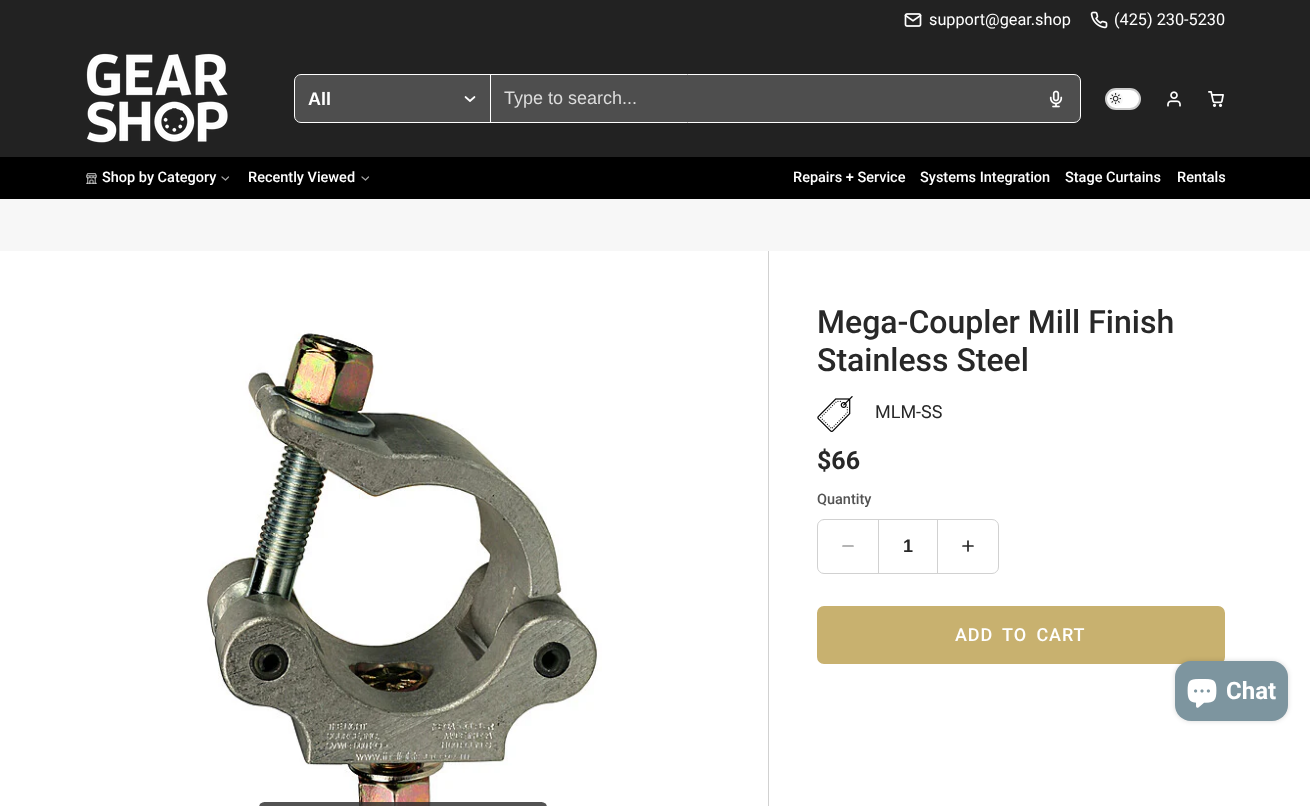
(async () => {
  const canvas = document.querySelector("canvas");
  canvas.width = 1310;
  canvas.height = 806;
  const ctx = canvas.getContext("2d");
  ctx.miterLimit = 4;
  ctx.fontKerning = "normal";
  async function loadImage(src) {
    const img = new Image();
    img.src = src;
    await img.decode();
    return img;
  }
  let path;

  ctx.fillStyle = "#f7f7f7";
  ctx.fillRect(0, 0, 1310, 806);
  ctx.fillStyle = "#222222";
  ctx.fillRect(0, 0, 1310, 157);
  ctx.drawImage(await loadImage("img/1.png"), 904, 13, 18, 14);
  ctx.drawImage(await loadImage("img/2.png"), 1090, 11, 18, 18);
  ctx.drawImage(await loadImage("img/3.png"), 86, 53, 142, 90);
  ctx.fillStyle = "#4e4e4e";
  ctx.beginPath();
  ctx.roundRect(294.5, 74.5, 786, 48, 6.5);
  ctx.fill();
  ctx.strokeStyle = "#ffffff";
  ctx.stroke();
  ctx.fillStyle = "#ffffff";
  ctx.fillRect(490, 75, 1, 47);
  path = new Path2D("M465.5 97L470 101L474.5 97");
  ctx.lineWidth = 1.7;
  ctx.lineCap = "round";
  ctx.lineJoin = "round";
  ctx.stroke(path);
  ctx.drawImage(await loadImage("img/4.png"), 1049, 90, 14, 18);
  ctx.beginPath();
  ctx.roundRect(1106, 89, 34, 20, 10);
  ctx.fill();
  ctx.strokeStyle = "#cccccc";
  ctx.lineWidth = 2;
  ctx.lineJoin = "miter";
  ctx.stroke();
  ctx.fillStyle = "#f7f7f7";
  ctx.beginPath();
  ctx.arc(1116, 99, 7, 0, Math.PI * 2);
  ctx.fill();
  ctx.drawImage(await loadImage("img/5.png"), 1110, 93, 11, 11);
  ctx.drawImage(await loadImage("img/6.png"), 1167, 91, 14, 16);
  ctx.drawImage(await loadImage("img/7.png"), 1208, 91, 16, 16);
  ctx.fillStyle = "#000000";
  ctx.fillRect(0, 157, 1310, 42);
  ctx.drawImage(await loadImage("img/8.png"), 86, 173, 11, 11);
  path = new Path2D("M222 177L225.5 180L228.5 177");
  ctx.strokeStyle = "#a3a3a3";
  ctx.lineWidth = 1.2;
  ctx.lineJoin = "round";
  ctx.stroke(path);
  path = new Path2D("M362 177L365.5 180L368.5 177");
  ctx.stroke(path);
  ctx.fillStyle = "#ffffff";
  ctx.fillRect(0, 251, 1310, 555);
  ctx.fillStyle = "#d1d1d1";
  ctx.fillRect(768, 251, 1, 555);
  ctx.drawImage(await loadImage("img/9.png"), 206, 330, 396, 476);
  ctx.fillStyle = "rgba(40, 40, 40, 0.8)";
  ctx.beginPath();
  ctx.roundRect(259, 802, 288, 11, 7);
  ctx.fill();
  ctx.drawImage(await loadImage("img/10.png"), 817, 396, 36, 36);
  ctx.beginPath();
  ctx.roundRect(817.5, 519.5, 181, 54, 6.5);
  ctx.strokeStyle = "#d1d1d1";
  ctx.lineWidth = 1;
  ctx.lineJoin = "miter";
  ctx.stroke();
  path = new Path2D("M843 546H853");
  ctx.strokeStyle = "#9c9c9c";
  ctx.lineWidth = 1.7;
  ctx.lineJoin = "round";
  ctx.stroke(path);
  ctx.fillStyle = "#d1d1d1";
  ctx.fillRect(937, 520, 1, 53);
  ctx.fillRect(878, 520, 1, 53);
  path = new Path2D("M968 541V551M963 546H973");
  ctx.strokeStyle = "#282828";
  ctx.stroke(path);
  ctx.fillStyle = "#c8b16f";
  ctx.beginPath();
  ctx.roundRect(818, 607, 406, 56, 6);
  ctx.fill();
  ctx.strokeStyle = "#c8b16f";
  ctx.lineWidth = 2;
  ctx.lineJoin = "miter";
  ctx.stroke();
  ctx.fillStyle = "rgba(0, 0, 0, 0.15)";
  ctx.filter = "blur(2.5px)";
  ctx.beginPath();
  ctx.roundRect(1175, 661, 113, 60, 16);
  ctx.fill();
  ctx.filter = "none";
  ctx.fillStyle = "#7d959f";
  ctx.beginPath();
  ctx.roundRect(1175, 661, 113, 60, 16);
  ctx.fill();
  ctx.drawImage(await loadImage("img/11.png"), 1187, 679, 30, 29);
  ctx.font = "16.25px Roboto";
  ctx.fillStyle = "#ffffff";
  ctx.fillText("support@gear.shop", 929, 25);
  ctx.fillText("(425) 230-5230", 1114, 25);
  ctx.font = "bold 18px Liberation Sans";
  ctx.fillText("All", 308, 105);
  ctx.font = "18px Liberation Sans";
  ctx.fillStyle = "#dcdcdc";
  ctx.fillText("Type to search...", 504, 104);
  ctx.font = "500 14.5px Roboto";
  ctx.fillStyle = "#ffffff";
  for (const [text, x, y] of [
    ["Shop by Category", 102, 182],
    ["Recently Viewed", 248, 182],
    ["Repairs + Service", 793, 182],
    ["Systems Integration", 920, 182],
    ["Stage Curtains", 1065, 182],
    ["Rentals", 1177, 182],
  ]) {
    ctx.fillText(text, x, y);
  }
  ctx.font = "500 32px Roboto";
  ctx.fillStyle = "#282828";
  ctx.fillText("Mega-Coupler Mill Finish", 817, 333);
  ctx.fillText("Stainless Steel", 817, 371);
  ctx.font = "18px Roboto";
  ctx.fillText("MLM-SS", 875, 418);
  ctx.font = "bold 25px Roboto";
  ctx.fillText("$66", 817, 469);
  ctx.font = "500 14.5px Roboto";
  ctx.fillStyle = "#535353";
  ctx.fillText("Quantity", 817, 504);
  ctx.font = "bold 18px Liberation Sans";
  ctx.fillStyle = "#282828";
  ctx.fillText("1", 903, 552);
  ctx.letterSpacing = "0.9px";
  ctx.wordSpacing = "4px";
  ctx.font = "500 18px Roboto";
  ctx.fillStyle = "#ffffff";
  ctx.fillText("ADD TO CART", 955, 641);
  ctx.letterSpacing = "0px";
  ctx.wordSpacing = "0px";
  ctx.font = "bold 24px Roboto";
  ctx.fillText("Chat", 1226, 699);
})();
